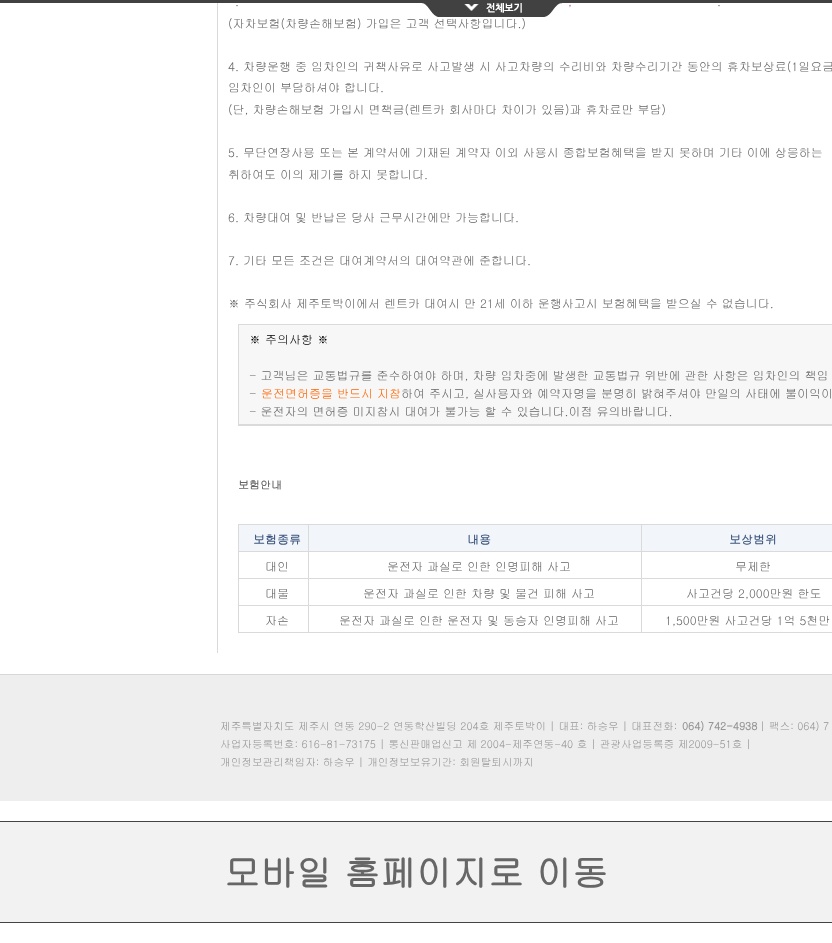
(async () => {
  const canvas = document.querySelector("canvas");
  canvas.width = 832;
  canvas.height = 943;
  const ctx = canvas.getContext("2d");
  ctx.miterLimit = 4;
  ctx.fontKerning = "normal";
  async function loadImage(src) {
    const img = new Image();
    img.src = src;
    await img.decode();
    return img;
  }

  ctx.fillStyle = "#ffffff";
  ctx.fillRect(0, 0, 832, 943);
  ctx.fillStyle = "#dadada";
  ctx.fillRect(217, 0, 1, 476);
  ctx.fillStyle = "#414141";
  ctx.fillRect(0, 0, 832, 3);
  ctx.drawImage(await loadImage("img/1.png"), 422, 3, 140, 14);
  ctx.strokeStyle = "#dadada";
  ctx.strokeRect(238.5, 324.5, 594, 101);
  for (const [x, y, w, h, color] of [
    [239, 325, 593, 99, "#f7f7f7"],
    [239, 424, 593, 1, "#dadada"],
    [217, 476, 1, 177, "#dadada"],
    [238, 524, 594, 1, "#dadada"],
    [238, 524, 1, 109, "#dadada"],
    [239, 525, 69, 26, "#f2f6fb"],
    [641, 632, 191, 1, "#dadada"],
    [641, 605, 1, 28, "#dadada"],
    [641, 605, 191, 1, "#dadada"],
    [641, 578, 1, 28, "#dadada"],
    [641, 578, 191, 1, "#dadada"],
    [641, 551, 1, 28, "#dadada"],
    [641, 551, 191, 1, "#dadada"],
    [641, 524, 1, 28, "#dadada"],
    [308, 632, 334, 1, "#dadada"],
    [308, 605, 1, 28, "#dadada"],
    [308, 605, 334, 1, "#dadada"],
    [308, 578, 1, 28, "#dadada"],
    [308, 578, 334, 1, "#dadada"],
    [308, 551, 1, 28, "#dadada"],
    [308, 551, 334, 1, "#dadada"],
    [308, 524, 1, 28, "#dadada"],
    [239, 551, 70, 1, "#dadada"],
    [309, 525, 332, 26, "#f2f6fb"],
    [642, 525, 190, 26, "#f2f6fb"],
    [239, 578, 70, 1, "#dadada"],
    [239, 605, 70, 1, "#dadada"],
    [239, 632, 70, 1, "#dadada"],
    [0, 675, 832, 126, "#eeeeee"],
    [0, 674, 832, 1, "#d7d7d7"],
    [0, 822, 832, 100, "#f2f2f2"],
    [0, 821, 832, 1, "#444444"],
    [0, 922, 832, 1, "#444444"],
  ]) {
    ctx.fillStyle = color;
    ctx.fillRect(x, y, w, h);
  }
  ctx.font = "12px Gulim";
  ctx.fillStyle = "#666666";
  ctx.fillText(".", 235, 6);
  ctx.fillStyle = "#b33f97";
  ctx.fillText(",", 568, 6);
  ctx.fillStyle = "#666666";
  for (const [text, x, y] of [
    [".", 717, 6],
    ["(자차보험(차량손해보험) 가입은 고객 선택사항입니다.)", 228, 28],
    ["4. 차량운행 중 임차인의 귀책사유로 사고발생 시 사고차량의 수리비와 차량수리기간 동안의 휴차보상료(1일요금", 228, 71],
    ["임차인이 부담하셔야 합니다.", 228, 92],
    ["(단, 차량손해보험 가입시 면책금(렌트카 회사마다 차이가 있음)과 휴차료만 부담)", 228, 114],
    ["5. 무단연장사용 또는 본 계약서에 기재된 계약자 이외 사용시 종합보험혜택을 받지 못하며 기타 이에 상응하는", 228, 157],
    ["취하여도 이의 제기를 하지 못합니다.", 228, 179],
    ["6. 차량대여 및 반납은 당사 근무시간에만 가능합니다.", 228, 222],
    ["7. 기타 모든 조건은 대여계약서의 대여약관에 준합니다.", 228, 265],
    ["※ 주식회사 제주토박이에서 렌트카 대여시 만 21세 이하 운행사고시 보험혜택을 받으실 수 없습니다.", 228, 308],
  ]) {
    ctx.fillText(text, x, y);
  }
  ctx.fillStyle = "#000000";
  ctx.fillText("※ 주의사항 ※", 249, 344);
  ctx.fillStyle = "#666666";
  ctx.fillText("- 고객님은 교통법규를 준수하여야 하며, 차량 임차중에 발생한 교통법규 위반에 관한 사항은 임차인의 책임", 249, 380);
  ctx.fillText("-", 249, 398);
  ctx.fillStyle = "#ff6600";
  ctx.fillText("운전면허증을 반드시 지참", 261, 398);
  ctx.fillStyle = "#666666";
  ctx.fillText("하여 주시고, 실사용자와 예약자명을 분명히 밝혀주셔야 만일의 사태에 불이익이", 401, 398);
  ctx.fillText("- 운전자의 면허증 미지참시 대여가 불가능 할 수 있습니다.이점 유의바랍니다.", 249, 416);
  ctx.font = "bold 11px Gulim";
  ctx.fillText("보험안내", 238, 489);
  ctx.font = "bold 12px Gulim";
  ctx.fillStyle = "#3f5880";
  for (const [text, x, y] of [
    ["보험종류", 253, 544],
    ["내용", 467, 544],
    ["보상범위", 729, 544],
  ]) {
    ctx.fillText(text, x, y);
  }
  ctx.font = "12px Gulim";
  ctx.fillStyle = "#666666";
  for (const [text, x, y] of [
    ["대인", 265, 571],
    ["운전자 과실로 인한 인명피해 사고", 387, 571],
    ["무제한", 735, 571],
    ["대물", 265, 598],
    ["운전자 과실로 인한 차량 및 물건 피해 사고", 363, 598],
    ["사고건당 2,000만원 한도", 686, 598],
    ["자손", 265, 625],
    ["운전자 과실로 인한 운전자 및 동승자 인명피해 사고", 339, 625],
    ["1,500만원 사고건당 1억 5천만", 665, 625],
  ]) {
    ctx.fillText(text, x, y);
  }
  ctx.font = "10.65px Gulim";
  ctx.fillStyle = "#969595";
  ctx.fillText("제주특별자치도 제주시 연동 290-2 연동학산빌딩 204호 제주토박이 | 대표: 하승우 | 대표전화:", 220, 730);
  ctx.font = "bold 10.65px Gulim";
  ctx.fillText("064) 742-4938", 682, 730);
  ctx.font = "10.65px Gulim";
  for (const [text, x, y] of [
    ["| 팩스: 064) 7", 760, 730],
    ["사업자등록번호: 616-81-73175 | 통신판매업신고 제 2004-제주연동-40 호 | 관광사업등록증 제2009-51호 |", 220, 748],
    ["개인정보관리책임자: 하승우 | 개인정보보유기간: 회원탈퇴시까지", 220, 766],
  ]) {
    ctx.fillText(text, x, y);
  }
  ctx.font = "bold 36px Gulim";
  ctx.fillStyle = "#666666";
  ctx.fillText("모바일 홈페이지로 이동", 224, 886);
})();
